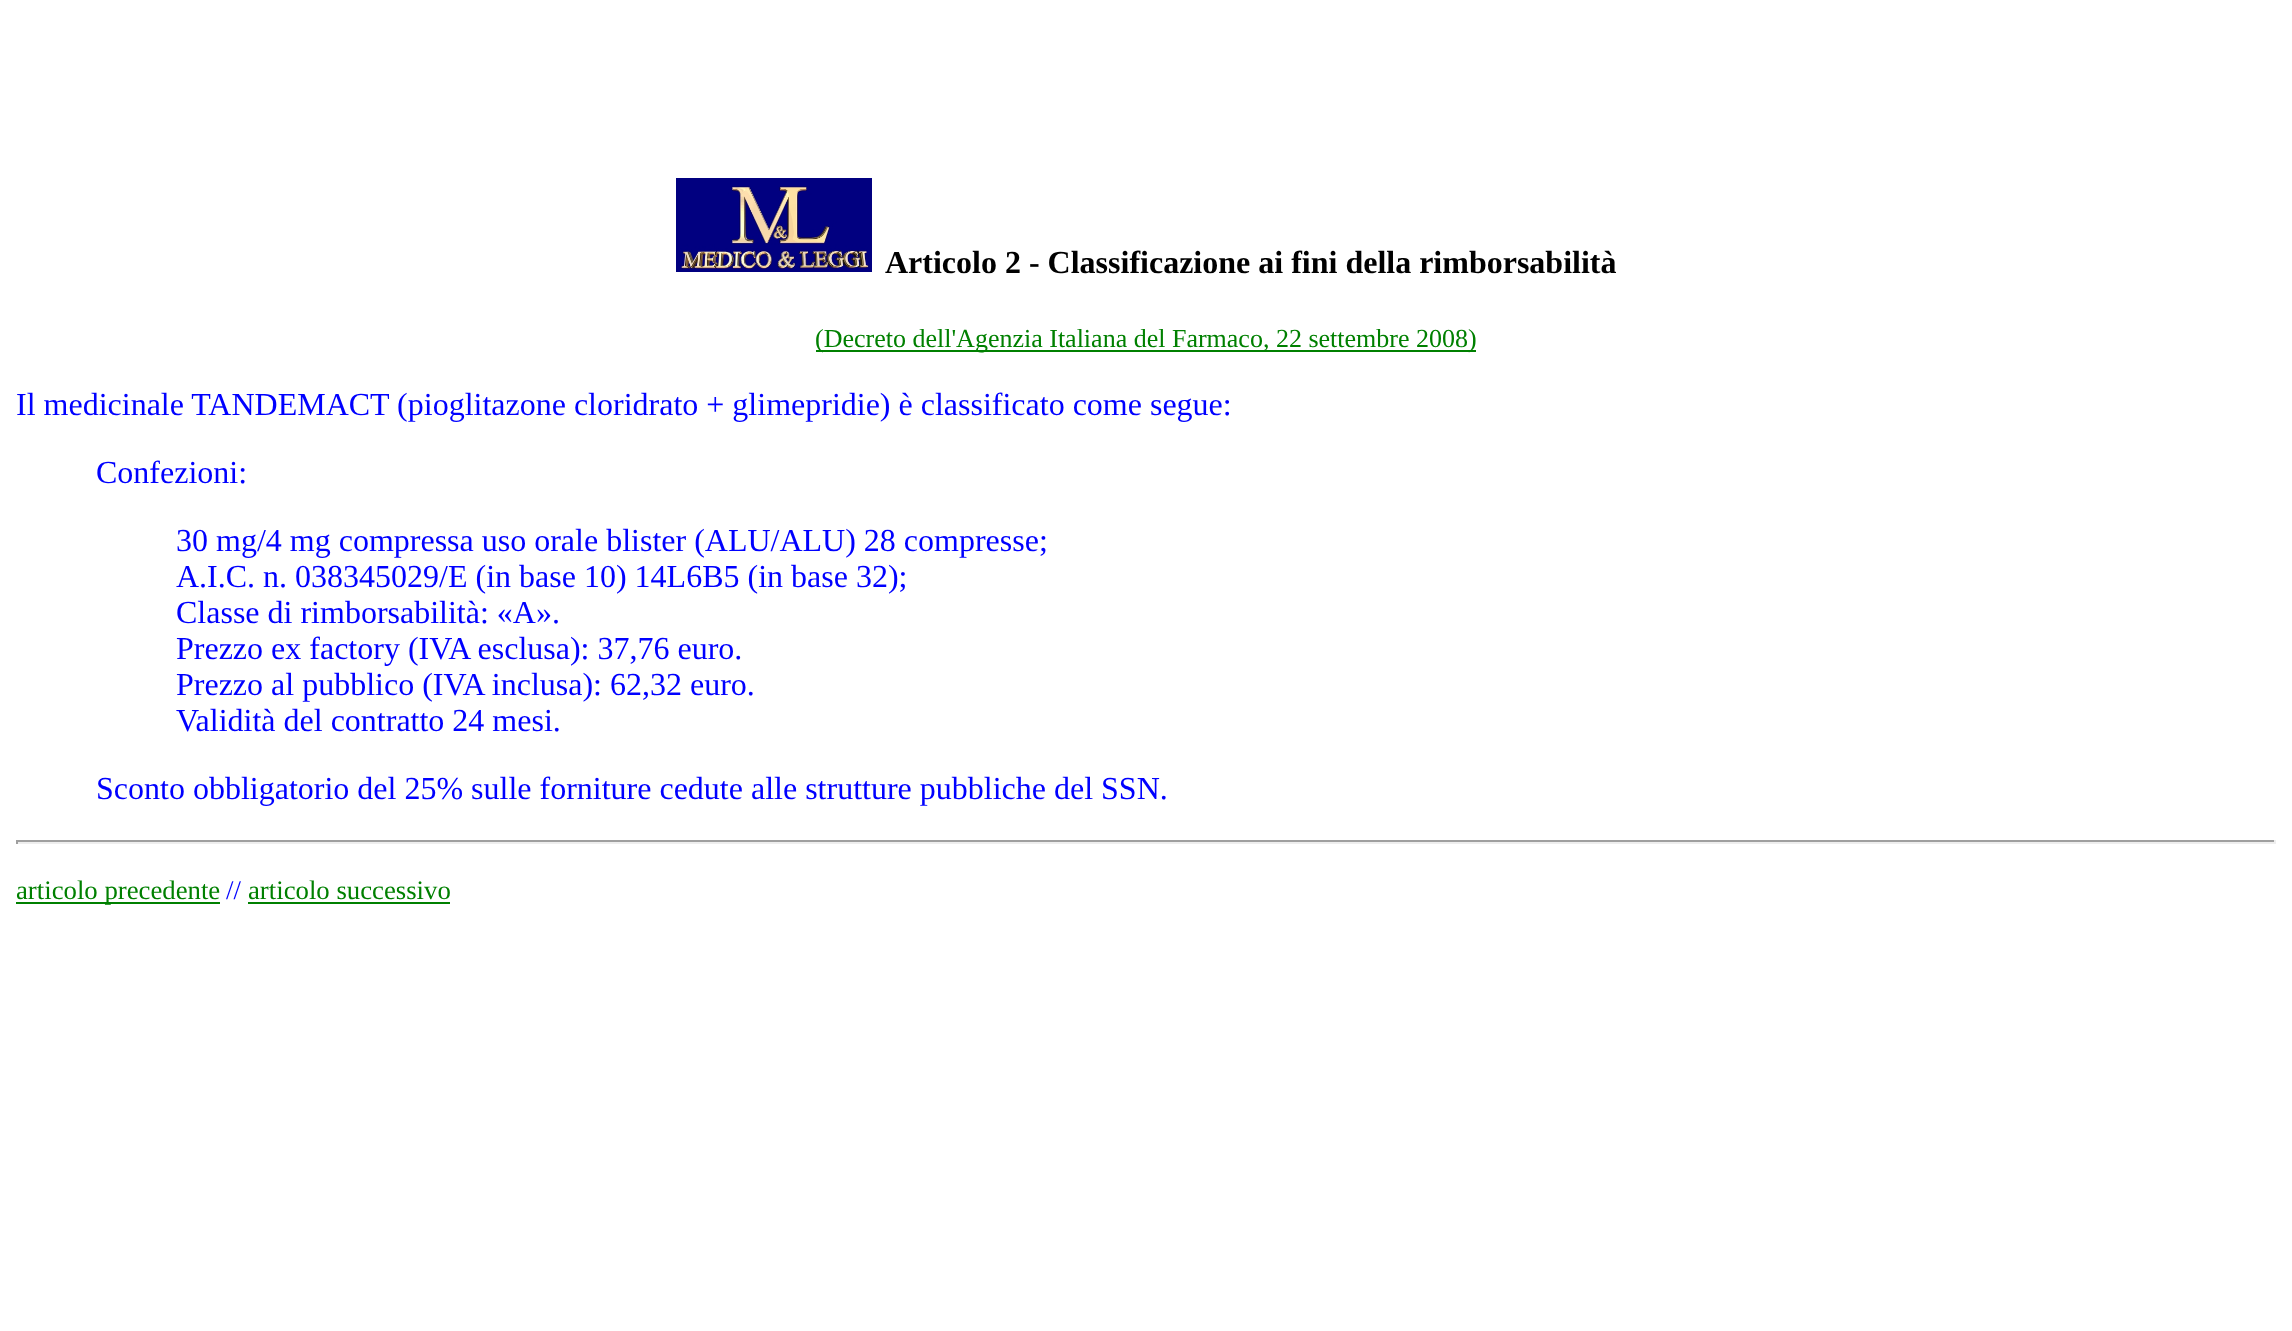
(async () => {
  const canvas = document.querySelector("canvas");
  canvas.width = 2292;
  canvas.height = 1331;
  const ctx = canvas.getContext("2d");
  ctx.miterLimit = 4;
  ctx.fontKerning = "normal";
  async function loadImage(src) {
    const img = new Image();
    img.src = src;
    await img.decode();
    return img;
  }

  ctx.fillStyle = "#ffffff";
  ctx.fillRect(0, 0, 2292, 1331);
  ctx.drawImage(await loadImage("img/1.png"), 676, 178, 196, 94);
  for (const [x, y, w, h, color] of [
    [816, 350, 660, 2, "#008000"],
    [16, 840, 2260, 2, "#9f9f9f"],
    [2274, 840, 2, 4, "#eeeeee"],
    [16, 842, 2260, 2, "#eeeeee"],
    [16, 840, 2, 4, "#9f9f9f"],
    [16, 902, 204, 2, "#008000"],
    [248, 902, 202, 2, "#008000"],
  ]) {
    ctx.fillStyle = color;
    ctx.fillRect(x, y, w, h);
  }
  ctx.font = "bold 32px Liberation Serif";
  ctx.fillStyle = "#000000";
  ctx.fillText("Articolo 2 - Classificazione ai fini della rimborsabilità", 885, 273);
  ctx.font = "26px Liberation Serif";
  ctx.fillStyle = "#008000";
  ctx.fillText("(Decreto dell'Agenzia Italiana del Farmaco, 22 settembre 2008)", 815, 347);
  ctx.font = "32px Liberation Serif";
  ctx.fillStyle = "#0000ff";
  for (const [text, x, y] of [
    ["Il medicinale TANDEMACT (pioglitazone cloridrato + glimepridie) è classificato come segue:", 16, 415],
    ["Confezioni:", 96, 483],
    ["30 mg/4 mg compressa uso orale blister (ALU/ALU) 28 compresse;", 176, 551],
    ["A.I.C. n. 038345029/E (in base 10) 14L6B5 (in base 32);", 176, 587],
    ["Classe di rimborsabilità: «A».", 176, 623],
    ["Prezzo ex factory (IVA esclusa): 37,76 euro.", 176, 659],
    ["Prezzo al pubblico (IVA inclusa): 62,32 euro.", 176, 695],
    ["Validità del contratto 24 mesi.", 176, 731],
    ["Sconto obbligatorio del 25% sulle forniture cedute alle strutture pubbliche del SSN.", 96, 799],
  ]) {
    ctx.fillText(text, x, y);
  }
  ctx.font = "26.75px Liberation Serif";
  ctx.fillStyle = "#008000";
  ctx.fillText("articolo precedente", 16, 899);
  ctx.fillStyle = "#0000ff";
  ctx.fillText("//", 226, 899);
  ctx.fillStyle = "#008000";
  ctx.fillText("articolo successivo", 248, 899);
})();
